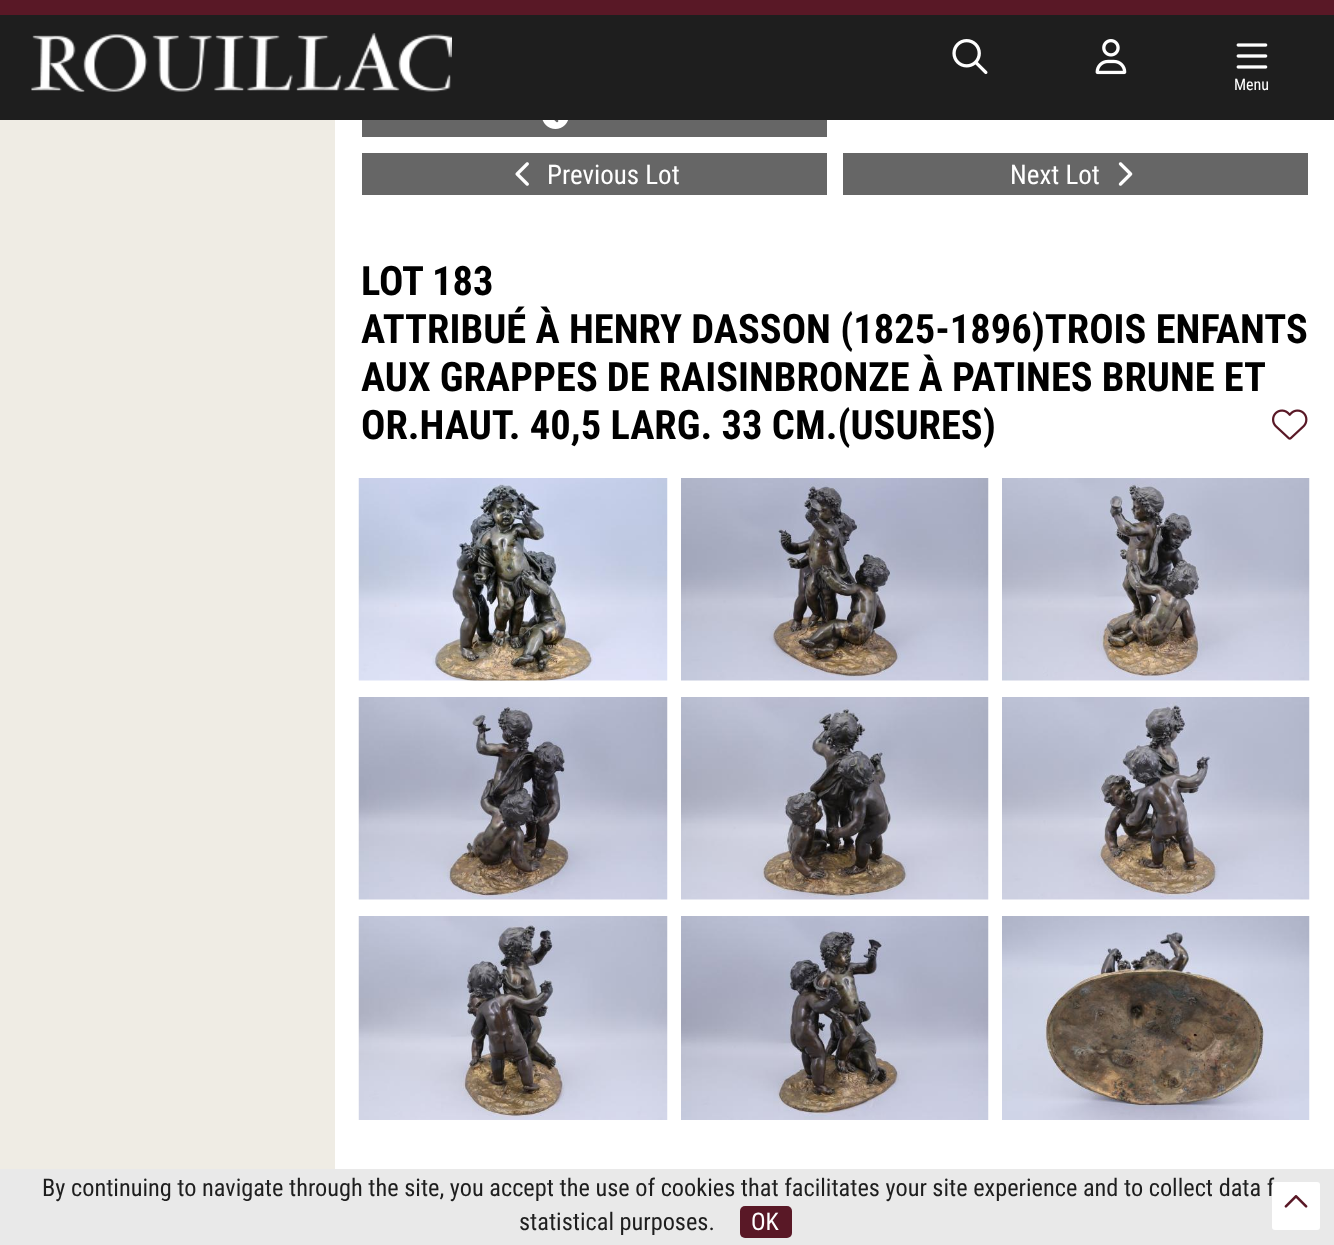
(async () => {
  const canvas = document.querySelector("canvas");
  canvas.width = 1334;
  canvas.height = 1245;
  const ctx = canvas.getContext("2d");
  ctx.miterLimit = 4;
  ctx.fontKerning = "normal";
  async function loadImage(src) {
    const img = new Image();
    img.src = src;
    await img.decode();
    return img;
  }

  ctx.fillStyle = "#efece4";
  ctx.fillRect(0, 0, 1334, 1245);
  ctx.fillStyle = "#1e1e1e";
  ctx.fillRect(0, 15, 1334, 105);
  ctx.fillStyle = "#591826";
  ctx.fillRect(0, 0, 1334, 15);
  ctx.drawImage(await loadImage("img/1.png"), 31, 33, 421, 59);
  ctx.drawImage(await loadImage("img/2.png"), 952, 39, 36, 36);
  ctx.drawImage(await loadImage("img/3.png"), 1095, 39, 32, 36);
  ctx.drawImage(await loadImage("img/4.png"), 1236, 43, 32, 26);
  ctx.fillStyle = "#ffffff";
  ctx.fillRect(335, 120, 999, 1049);
  ctx.fillStyle = "#666666";
  ctx.fillRect(362, 120, 465, 17);
  ctx.drawImage(await loadImage("img/5.png"), 542, 120, 26, 9);
  ctx.fillRect(362, 153, 465, 42);
  ctx.drawImage(await loadImage("img/6.png"), 515, 162, 14, 24);
  ctx.fillRect(843, 153, 465, 42);
  ctx.drawImage(await loadImage("img/7.png"), 1118, 162, 15, 24);
  ctx.drawImage(await loadImage("img/8.png"), 1272, 409, 36, 31);
  ctx.drawImage(await loadImage("img/9.png"), 358, 478, 310, 203);
  ctx.drawImage(await loadImage("img/10.png"), 681, 478, 308, 203);
  ctx.drawImage(await loadImage("img/11.png"), 1002, 478, 308, 203);
  ctx.drawImage(await loadImage("img/12.png"), 358, 697, 310, 203);
  ctx.drawImage(await loadImage("img/13.png"), 681, 697, 308, 203);
  ctx.drawImage(await loadImage("img/14.png"), 1002, 697, 308, 203);
  ctx.drawImage(await loadImage("img/15.png"), 358, 916, 310, 204);
  ctx.drawImage(await loadImage("img/16.png"), 681, 916, 308, 204);
  ctx.drawImage(await loadImage("img/17.png"), 1002, 916, 308, 204);
  ctx.fillStyle = "#e9e9e9";
  ctx.fillRect(0, 1169, 1334, 76);
  ctx.fillStyle = "#591826";
  ctx.beginPath();
  ctx.roundRect(740, 1206, 52, 32, 5);
  ctx.fill();
  ctx.font = "16px Roboto Condensed";
  ctx.fillStyle = "#ffffff";
  ctx.fillText("Menu", 1234, 90);
  ctx.font = "27px Roboto Condensed";
  ctx.fillText("Previous Lot", 547, 184);
  ctx.fillText("Next Lot", 1010, 184);
  ctx.font = "bold 40.5px Roboto Condensed";
  ctx.fillStyle = "#000000";
  ctx.fillText("LOT 183", 361, 295);
  ctx.fillText("ATTRIBUÉ À HENRY DASSON (1825-1896)TROIS ENFANTS", 361, 343);
  ctx.wordSpacing = "-0.25px";
  ctx.fillText("AUX GRAPPES DE RAISINBRONZE À PATINES BRUNE ET", 361, 391);
  ctx.wordSpacing = "0px";
  ctx.fillText("OR.HAUT. 40,5 LARG. 33 CM.(USURES)", 361, 439);
  ctx.font = "24.3px Roboto Condensed";
  ctx.fillStyle = "#1e1e1e";
  ctx.fillText("By continuing to navigate through the site, you accept the use of cookies that facilitates your site experience and to collect data f", 42, 1196);
  ctx.fillText("statistical purposes.", 519, 1230);
  ctx.fillStyle = "#ffffff";
  ctx.fillText("OK", 751, 1230);
  ctx.beginPath();
  ctx.roundRect(1272, 1182, 48, 48, 3);
  ctx.fill();
  ctx.drawImage(await loadImage("img/18.png"), 1284, 1195, 24, 13);
})();
